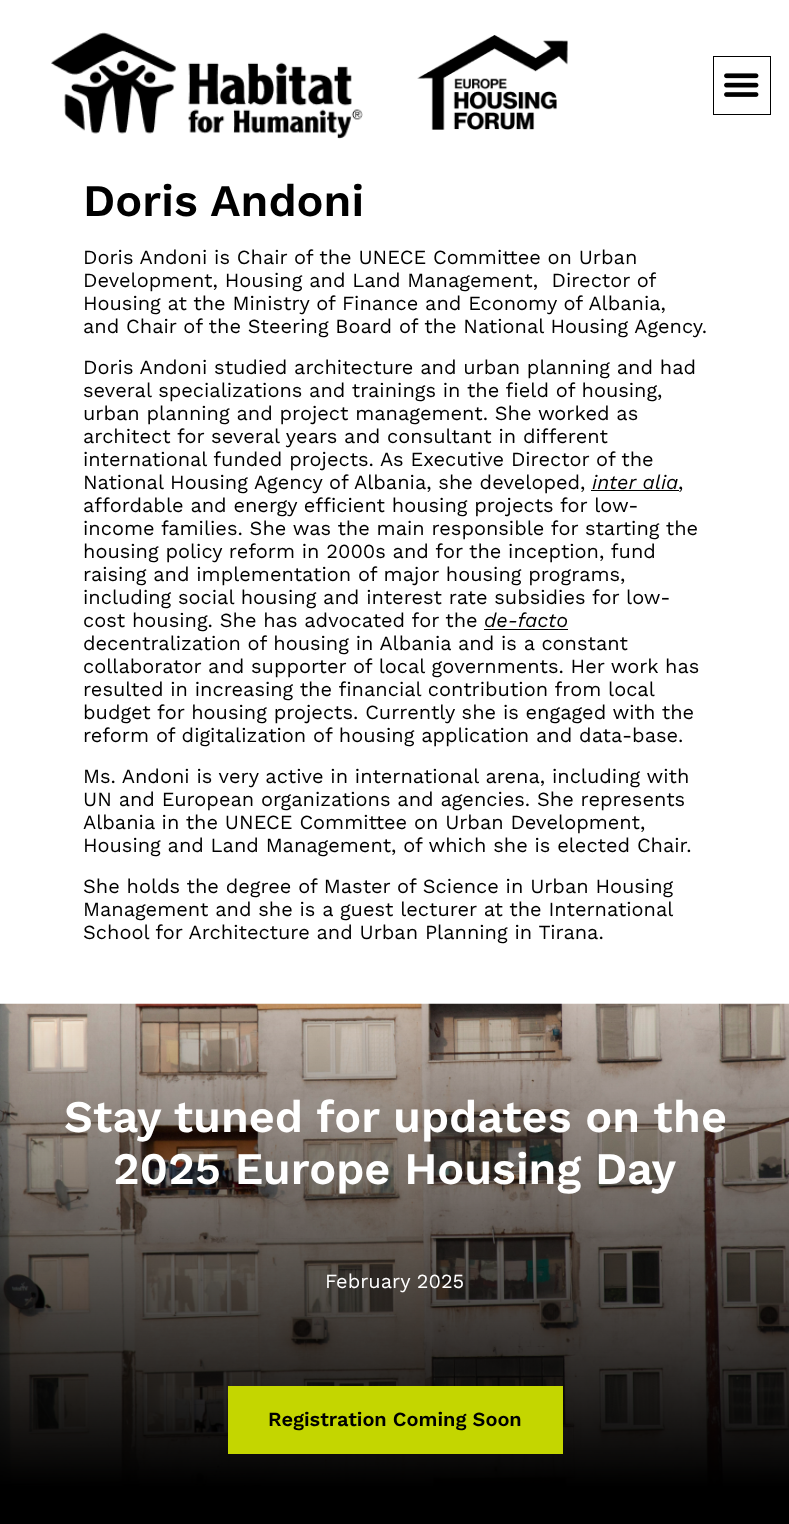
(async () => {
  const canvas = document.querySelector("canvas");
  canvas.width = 789;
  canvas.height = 1524;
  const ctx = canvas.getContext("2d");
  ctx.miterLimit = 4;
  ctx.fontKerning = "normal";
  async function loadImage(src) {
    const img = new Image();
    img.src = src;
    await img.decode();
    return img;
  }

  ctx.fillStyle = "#ffffff";
  ctx.fillRect(0, 0, 789, 1524);
  ctx.drawImage(await loadImage("img/1.png"), 51, 32, 312, 107);
  ctx.drawImage(await loadImage("img/2.png"), 417, 35, 151, 95);
  ctx.strokeStyle = "#000000";
  ctx.strokeRect(713.5, 56.5, 57, 58);
  ctx.drawImage(await loadImage("img/3.png"), 724, 73, 35, 24);
  ctx.fillStyle = "#000000";
  ctx.fillRect(591, 490, 88, 1);
  ctx.fillRect(484, 629, 84, 1);
  ctx.drawImage(await loadImage("img/4.png"), 0, 1003, 789, 521);
  ctx.fillStyle = "#c4d600";
  ctx.fillRect(228, 1386, 335, 68);
  ctx.font = "600 45px Work Sans";
  ctx.fillStyle = "#000000";
  ctx.fillText("Doris Andoni", 83, 216);
  ctx.font = "20px Work Sans";
  for (const [text, x, y] of [
    ["Doris Andoni is Chair of the UNECE Committee on Urban", 83, 264],
    ["Development, Housing and Land Management,  Director of", 83, 287],
    ["Housing at the Ministry of Finance and Economy of Albania,", 83, 310],
    ["and Chair of the Steering Board of the National Housing Agency.", 83, 333],
    ["Doris Andoni studied architecture and urban planning and had", 83, 374],
    ["several specializations and trainings in the field of housing,", 83, 397],
    ["urban planning and project management. She worked as", 83, 420],
    ["architect for several years and consultant in different", 83, 443],
    ["international funded projects. As Executive Director of the", 83, 466],
    ["National Housing Agency of Albania, she developed,", 83, 489],
  ]) {
    ctx.fillText(text, x, y);
  }
  ctx.font = "italic 20px Work Sans";
  ctx.fillText("inter alia", 592, 489);
  ctx.font = "20px Work Sans";
  for (const [text, x, y] of [
    [",", 678, 489],
    ["affordable and energy efficient housing projects for low-", 83, 512],
    ["income families. She was the main responsible for starting the", 83, 535],
    ["housing policy reform in 2000s and for the inception, fund", 83, 558],
    ["raising and implementation of major housing programs,", 83, 581],
    ["including social housing and interest rate subsidies for low-", 83, 604],
    ["cost housing. She has advocated for the", 83, 627],
  ]) {
    ctx.fillText(text, x, y);
  }
  ctx.font = "italic 20px Work Sans";
  ctx.fillText("de-facto", 484, 627);
  ctx.font = "20px Work Sans";
  for (const [text, x, y] of [
    ["decentralization of housing in Albania and is a constant", 83, 650],
    ["collaborator and supporter of local governments. Her work has", 83, 673],
    ["resulted in increasing the financial contribution from local", 83, 696],
    ["budget for housing projects. Currently she is engaged with the", 83, 719],
    ["reform of digitalization of housing application and data-base.", 83, 742],
    ["Ms. Andoni is very active in international arena, including with", 83, 783],
    ["UN and European organizations and agencies. She represents", 83, 806],
    ["Albania in the UNECE Committee on Urban Development,", 83, 829],
    ["Housing and Land Management, of which she is elected Chair.", 83, 852],
    ["She holds the degree of Master of Science in Urban Housing", 83, 893],
    ["Management and she is a guest lecturer at the International", 83, 916],
    ["School for Architecture and Urban Planning in Tirana.", 83, 939],
  ]) {
    ctx.fillText(text, x, y);
  }
  ctx.font = "600 45px Work Sans";
  ctx.fillStyle = "#ffffff";
  ctx.fillText("Stay tuned for updates on the", 64, 1132);
  ctx.fillText("2025 Europe Housing Day", 113, 1184);
  ctx.font = "20px Work Sans";
  ctx.fillText("February 2025", 325, 1288);
  ctx.font = "600 20px Work Sans";
  ctx.fillStyle = "#000000";
  ctx.fillText("Registration Coming Soon", 268, 1426);
})();
